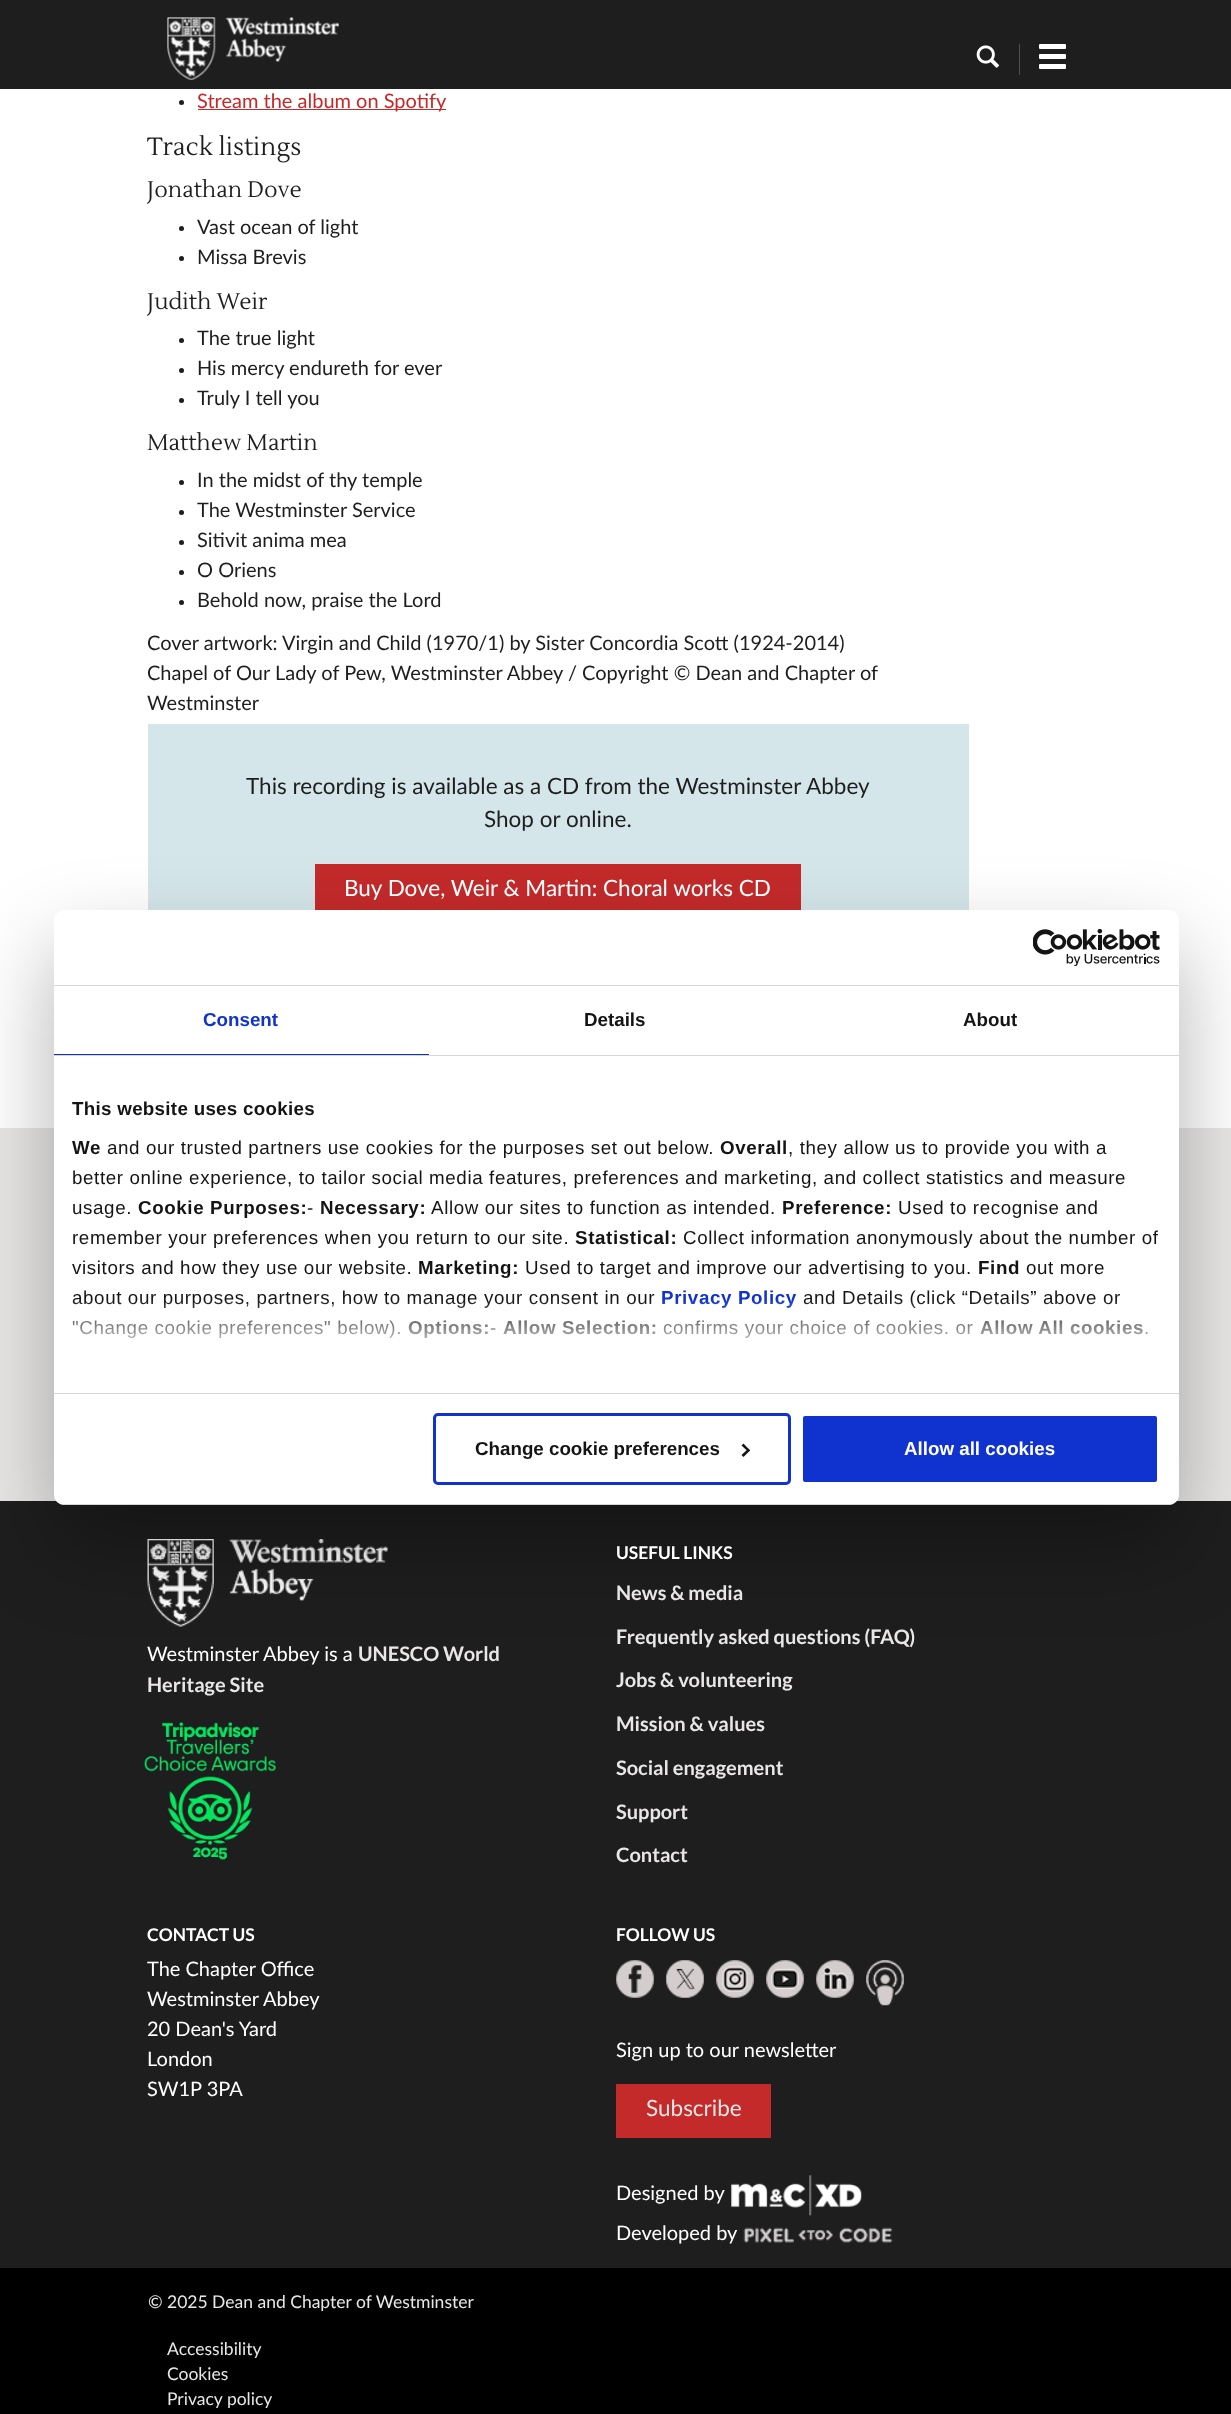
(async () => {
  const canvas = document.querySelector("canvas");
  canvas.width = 1231;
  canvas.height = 2414;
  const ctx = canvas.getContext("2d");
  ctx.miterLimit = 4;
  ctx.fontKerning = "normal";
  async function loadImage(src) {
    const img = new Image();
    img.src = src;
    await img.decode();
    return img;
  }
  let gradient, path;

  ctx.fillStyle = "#1e1e1e";
  ctx.fillRect(0, 0, 1231, 2414);
  ctx.drawImage(await loadImage("img/1.png"), 167, 17, 172, 63);
  ctx.fillStyle = "#544e4e";
  ctx.fillRect(1019, 44, 1, 31);
  ctx.drawImage(await loadImage("img/2.png"), 976, 45, 24, 23);
  ctx.fillStyle = "#ffffff";
  ctx.beginPath();
  ctx.roundRect(1039, 44, 27, 5, 1);
  ctx.fill();
  ctx.beginPath();
  ctx.roundRect(1039, 54, 27, 5, 1);
  ctx.fill();
  ctx.beginPath();
  ctx.roundRect(1039, 64, 27, 5, 1);
  ctx.fill();
  ctx.fillRect(0, 89, 1231, 1039);
  ctx.fillStyle = "#1e1e1e";
  ctx.beginPath();
  ctx.arc(181.5, 102.5, 2.5, 0, Math.PI * 2);
  ctx.fill();
  ctx.fillStyle = "#c42a2a";
  ctx.fillRect(198, 109, 248, 1);
  ctx.fillStyle = "#1e1e1e";
  ctx.beginPath();
  ctx.arc(181.5, 228.5, 2.5, 0, Math.PI * 2);
  ctx.fill();
  ctx.beginPath();
  ctx.arc(181.5, 258.5, 2.5, 0, Math.PI * 2);
  ctx.fill();
  ctx.beginPath();
  ctx.arc(181.5, 340.5, 2.5, 0, Math.PI * 2);
  ctx.fill();
  ctx.beginPath();
  ctx.arc(181.5, 370.5, 2.5, 0, Math.PI * 2);
  ctx.fill();
  ctx.beginPath();
  ctx.arc(181.5, 400.5, 2.5, 0, Math.PI * 2);
  ctx.fill();
  ctx.beginPath();
  ctx.arc(181.5, 482.5, 2.5, 0, Math.PI * 2);
  ctx.fill();
  ctx.beginPath();
  ctx.arc(181.5, 512.5, 2.5, 0, Math.PI * 2);
  ctx.fill();
  ctx.beginPath();
  ctx.arc(181.5, 542.5, 2.5, 0, Math.PI * 2);
  ctx.fill();
  ctx.beginPath();
  ctx.arc(181.5, 572.5, 2.5, 0, Math.PI * 2);
  ctx.fill();
  ctx.beginPath();
  ctx.arc(181.5, 602.5, 2.5, 0, Math.PI * 2);
  ctx.fill();
  for (const [x, y, w, h, color] of [
    [148, 724, 821, 186, "#d5e6ea"],
    [315, 864, 486, 46, "#c42a2a"],
    [0, 1128, 1231, 373, "#e9e6e6"],
  ]) {
    ctx.fillStyle = color;
    ctx.fillRect(x, y, w, h);
  }
  ctx.drawImage(await loadImage("img/4.png"), 147, 1539, 241, 88);
  ctx.fillStyle = "rgba(0, 0, 0, 0.3)";
  ctx.filter = "blur(42.5px)";
  ctx.beginPath();
  ctx.roundRect(54, 950, 1125, 595, 10);
  ctx.fill();
  ctx.filter = "none";
  ctx.fillStyle = "#ffffff";
  ctx.beginPath();
  ctx.roundRect(54, 910, 1125, 595, 10);
  ctx.fill();
  ctx.fillStyle = "#d6d6d6";
  ctx.fillRect(54, 985, 1125, 1);
  ctx.drawImage(await loadImage("img/3.png"), 1033, 929, 127, 37);
  for (const [x, y, w, h, color] of [
    [54, 1055, 1125, 1, "#d6d6d6"],
    [54, 1054, 375, 1, "#1032cf"],
    [54, 1393, 1125, 1, "#d6d6d6"],
  ]) {
    ctx.fillStyle = color;
    ctx.fillRect(x, y, w, h);
  }
  ctx.save();
  ctx.beginPath();
  ctx.roundRect(54, 910, 1125, 595, 10);
  ctx.clip();
  ctx.fillRect(54, 1504, 1125, 1);
  ctx.restore();
  ctx.beginPath();
  ctx.roundRect(434.5, 1414.5, 355, 69, 3.5);
  ctx.strokeStyle = "#1032cf";
  ctx.lineWidth = 3;
  ctx.stroke();
  ctx.fillStyle = "#141414";
  path = new Path2D("M743.5 1443.5L750 1450.5L748.5 1452L741.5 1445.5Z");
  ctx.fill(path);
  path = new Path2D("M748.5 1448.5L750 1450.5L743.5 1457L741.5 1455Z");
  ctx.fill(path);
  ctx.fillStyle = "#1032cf";
  ctx.beginPath();
  ctx.roundRect(801.5, 1414.5, 357, 69, 3.5);
  ctx.fill();
  ctx.strokeStyle = "#ffffff";
  ctx.stroke();
  ctx.drawImage(await loadImage("img/5.png"), 144, 1722, 133, 138);
  ctx.drawImage(await loadImage("img/6.png"), 616, 1960, 38, 38);
  ctx.drawImage(await loadImage("img/7.png"), 666, 1960, 38, 38);
  ctx.drawImage(await loadImage("img/8.png"), 716, 1960, 38, 38);
  ctx.drawImage(await loadImage("img/9.png"), 766, 1960, 38, 38);
  ctx.drawImage(await loadImage("img/10.png"), 816, 1960, 38, 38);
  ctx.drawImage(await loadImage("img/11.png"), 866, 1960, 38, 46);
  ctx.fillStyle = "#c42a2a";
  ctx.fillRect(616, 2084, 155, 54);
  ctx.drawImage(await loadImage("img/12.png"), 731, 2175, 131, 41);
  ctx.drawImage(await loadImage("img/13.png"), 743, 2227, 150, 16);
  ctx.fillStyle = "#000000";
  ctx.fillRect(0, 2268, 1231, 146);
  ctx.font = "20px Lato";
  ctx.fillStyle = "#c42a2a";
  ctx.fillText("Stream the album on Spotify", 197, 108);
  ctx.font = "25px Lustria";
  ctx.fillStyle = "#1e1e1e";
  ctx.fillText("Track listings", 147, 155);
  ctx.font = "22.5px Lustria";
  ctx.fillText("Jonathan Dove", 147, 197);
  ctx.font = "20px Lato";
  ctx.fillText("Vast ocean of light", 197, 234);
  ctx.fillText("Missa Brevis", 197, 264);
  ctx.font = "22.5px Lustria";
  ctx.fillText("Judith Weir", 147, 309);
  ctx.font = "20px Lato";
  for (const [text, x, y] of [
    ["The true light", 197, 345],
    ["His mercy endureth for ever", 197, 375],
    ["Truly I tell you", 197, 405],
  ]) {
    ctx.fillText(text, x, y);
  }
  ctx.font = "22.5px Lustria";
  ctx.fillText("Matthew Martin", 147, 450);
  ctx.font = "20px Lato";
  for (const [text, x, y] of [
    ["In the midst of thy temple", 197, 487],
    ["The Westminster Service", 197, 517],
    ["Sitivit anima mea", 197, 547],
    ["O Oriens", 197, 577],
    ["Behold now, praise the Lord", 197, 607],
    ["Cover artwork: Virgin and Child (1970/1) by Sister Concordia Scott (1924-2014)", 147, 650],
    ["Chapel of Our Lady of Pew, Westminster Abbey / Copyright © Dean and Chapter of", 147, 680],
    ["Westminster", 147, 710],
  ]) {
    ctx.fillText(text, x, y);
  }
  ctx.font = "22.5px Lato";
  ctx.fillText("This recording is available as a CD from the Westminster Abbey", 246, 794);
  ctx.fillText("Shop or online.", 484, 827);
  ctx.fillStyle = "#ffffff";
  ctx.fillText("Buy Dove, Weir & Martin: Choral works CD", 344, 896);
  ctx.font = "bold 18.75px Liberation Sans";
  ctx.fillStyle = "#1032cf";
  ctx.fillText("Consent", 203, 1026);
  ctx.fillStyle = "#141414";
  ctx.fillText("Details", 584, 1026);
  ctx.fillText("About", 963, 1026);
  ctx.letterSpacing = "0.3px";
  ctx.fillText("This website uses cookies", 72, 1115);
  ctx.letterSpacing = "0.62px";
  ctx.fillText("We", 72, 1154);
  ctx.font = "18.75px Liberation Sans";
  ctx.fillText("and our trusted partners use cookies for the purposes set out below.", 107, 1154);
  ctx.font = "bold 18.75px Liberation Sans";
  ctx.fillText("Overall", 720, 1154);
  ctx.font = "18.75px Liberation Sans";
  for (const [text, x, y] of [
    [", they allow us to provide you with a", 788, 1154],
    ["better online experience, to tailor social media features, preferences and marketing, and collect statistics and measure", 72, 1184],
    ["usage.", 72, 1214],
  ]) {
    ctx.fillText(text, x, y);
  }
  ctx.font = "bold 18.75px Liberation Sans";
  ctx.fillText("Cookie Purposes:", 138, 1214);
  ctx.font = "18.75px Liberation Sans";
  ctx.fillText("-", 307, 1214);
  ctx.font = "bold 18.75px Liberation Sans";
  ctx.fillText("Necessary:", 320, 1214);
  ctx.font = "18.75px Liberation Sans";
  ctx.fillText("Allow our sites to function as intended.", 431, 1214);
  ctx.font = "bold 18.75px Liberation Sans";
  ctx.fillText("Preference:", 782, 1214);
  ctx.font = "18.75px Liberation Sans";
  ctx.fillText("Used to recognise and", 898, 1214);
  ctx.fillText("remember your preferences when you return to our site.", 72, 1244);
  ctx.font = "bold 18.75px Liberation Sans";
  ctx.fillText("Statistical:", 575, 1244);
  ctx.font = "18.75px Liberation Sans";
  ctx.fillText("Collect information anonymously about the number of", 683, 1244);
  ctx.fillText("visitors and how they use our website.", 72, 1274);
  ctx.font = "bold 18.75px Liberation Sans";
  ctx.fillText("Marketing:", 418, 1274);
  ctx.font = "18.75px Liberation Sans";
  ctx.fillText("Used to target and improve our advertising to you.", 525, 1274);
  ctx.font = "bold 18.75px Liberation Sans";
  ctx.fillText("Find", 978, 1274);
  ctx.font = "18.75px Liberation Sans";
  ctx.fillText("out more", 1026, 1274);
  ctx.fillText("about our purposes, partners, how to manage your consent in our", 72, 1304);
  ctx.font = "bold 18.75px Liberation Sans";
  ctx.fillStyle = "#1032cf";
  ctx.fillText("Privacy Policy", 661, 1304);
  ctx.font = "18.75px Liberation Sans";
  ctx.fillStyle = "#141414";
  ctx.fillText("and Details (click “Details” above or", 803, 1304);
  ctx.fillText("\"Change cookie preferences\" below).", 72, 1334);
  ctx.font = "bold 18.75px Liberation Sans";
  ctx.fillText("Options:", 408, 1334);
  ctx.font = "18.75px Liberation Sans";
  ctx.fillText("-", 490, 1334);
  ctx.font = "bold 18.75px Liberation Sans";
  ctx.fillText("Allow Selection:", 503, 1334);
  ctx.font = "18.75px Liberation Sans";
  ctx.fillText("confirms your choice of cookies. or", 663, 1334);
  ctx.font = "bold 18.75px Liberation Sans";
  ctx.fillText("Allow All cookies", 980, 1334);
  ctx.font = "18.75px Liberation Sans";
  ctx.fillText(".", 1144, 1334);
  gradient = ctx.createLinearGradient(608, 1393, 608, 1299);
  gradient.addColorStop(0, "#ffffff");
  gradient.addColorStop(0.5, "rgba(255, 255, 255, 0.8)");
  gradient.addColorStop(1, "rgba(255, 255, 255, 0)");
  ctx.fillStyle = gradient;
  ctx.fillRect(72, 1300, 1076, 38);
  ctx.letterSpacing = "0px";
  ctx.font = "bold 18.75px Liberation Sans";
  ctx.fillStyle = "#141414";
  ctx.fillText("Change cookie preferences", 475, 1455);
  ctx.fillStyle = "#ffffff";
  ctx.fillText("Allow all cookies", 904, 1455);
  ctx.font = "20px Lato";
  ctx.fillText("Westminster Abbey is a", 147, 1661);
  ctx.font = "bold 20px Lato";
  ctx.fillStyle = "#e9e6e6";
  ctx.fillText("UNESCO World", 358, 1661);
  ctx.fillText("Heritage Site", 147, 1692);
  ctx.font = "bold 17.5px Lato";
  ctx.fillStyle = "#ffffff";
  ctx.fillText("USEFUL LINKS", 616, 1559);
  ctx.font = "bold 20px Lato";
  ctx.fillStyle = "#e9e6e6";
  for (const [text, x, y] of [
    ["News & media", 616, 1600],
    ["Frequently asked questions (FAQ)", 616, 1644],
    ["Jobs & volunteering", 616, 1687],
    ["Mission & values", 616, 1731],
    ["Social engagement", 616, 1775],
    ["Support", 616, 1819],
    ["Contact", 616, 1862],
  ]) {
    ctx.fillText(text, x, y);
  }
  ctx.font = "bold 17.5px Lato";
  ctx.fillStyle = "#ffffff";
  ctx.fillText("CONTACT US", 147, 1941);
  ctx.font = "20px Lato";
  for (const [text, x, y] of [
    ["The Chapter Office", 147, 1976],
    ["Westminster Abbey", 147, 2006],
    ["20 Dean's Yard", 147, 2036],
    ["London", 147, 2066],
    ["SW1P 3PA", 147, 2096],
  ]) {
    ctx.fillText(text, x, y);
  }
  ctx.font = "bold 17.5px Lato";
  ctx.fillText("FOLLOW US", 616, 1941);
  ctx.font = "20px Lato";
  ctx.fillText("Sign up to our newsletter", 616, 2057);
  ctx.font = "22.5px Lato";
  ctx.fillStyle = "#e9e6e6";
  ctx.fillText("Subscribe", 646, 2116);
  ctx.font = "20px Lato";
  ctx.fillStyle = "#ffffff";
  ctx.fillText("Designed by", 616, 2200);
  ctx.fillText("Developed by", 616, 2240);
  ctx.font = "17.5px Lato";
  ctx.fillStyle = "#e9e6e6";
  for (const [text, x, y] of [
    ["© 2025 Dean and Chapter of Westminster", 148, 2308],
    ["Accessibility", 167, 2355],
    ["Cookies", 167, 2380],
    ["Privacy policy", 167, 2405],
  ]) {
    ctx.fillText(text, x, y);
  }
})();
